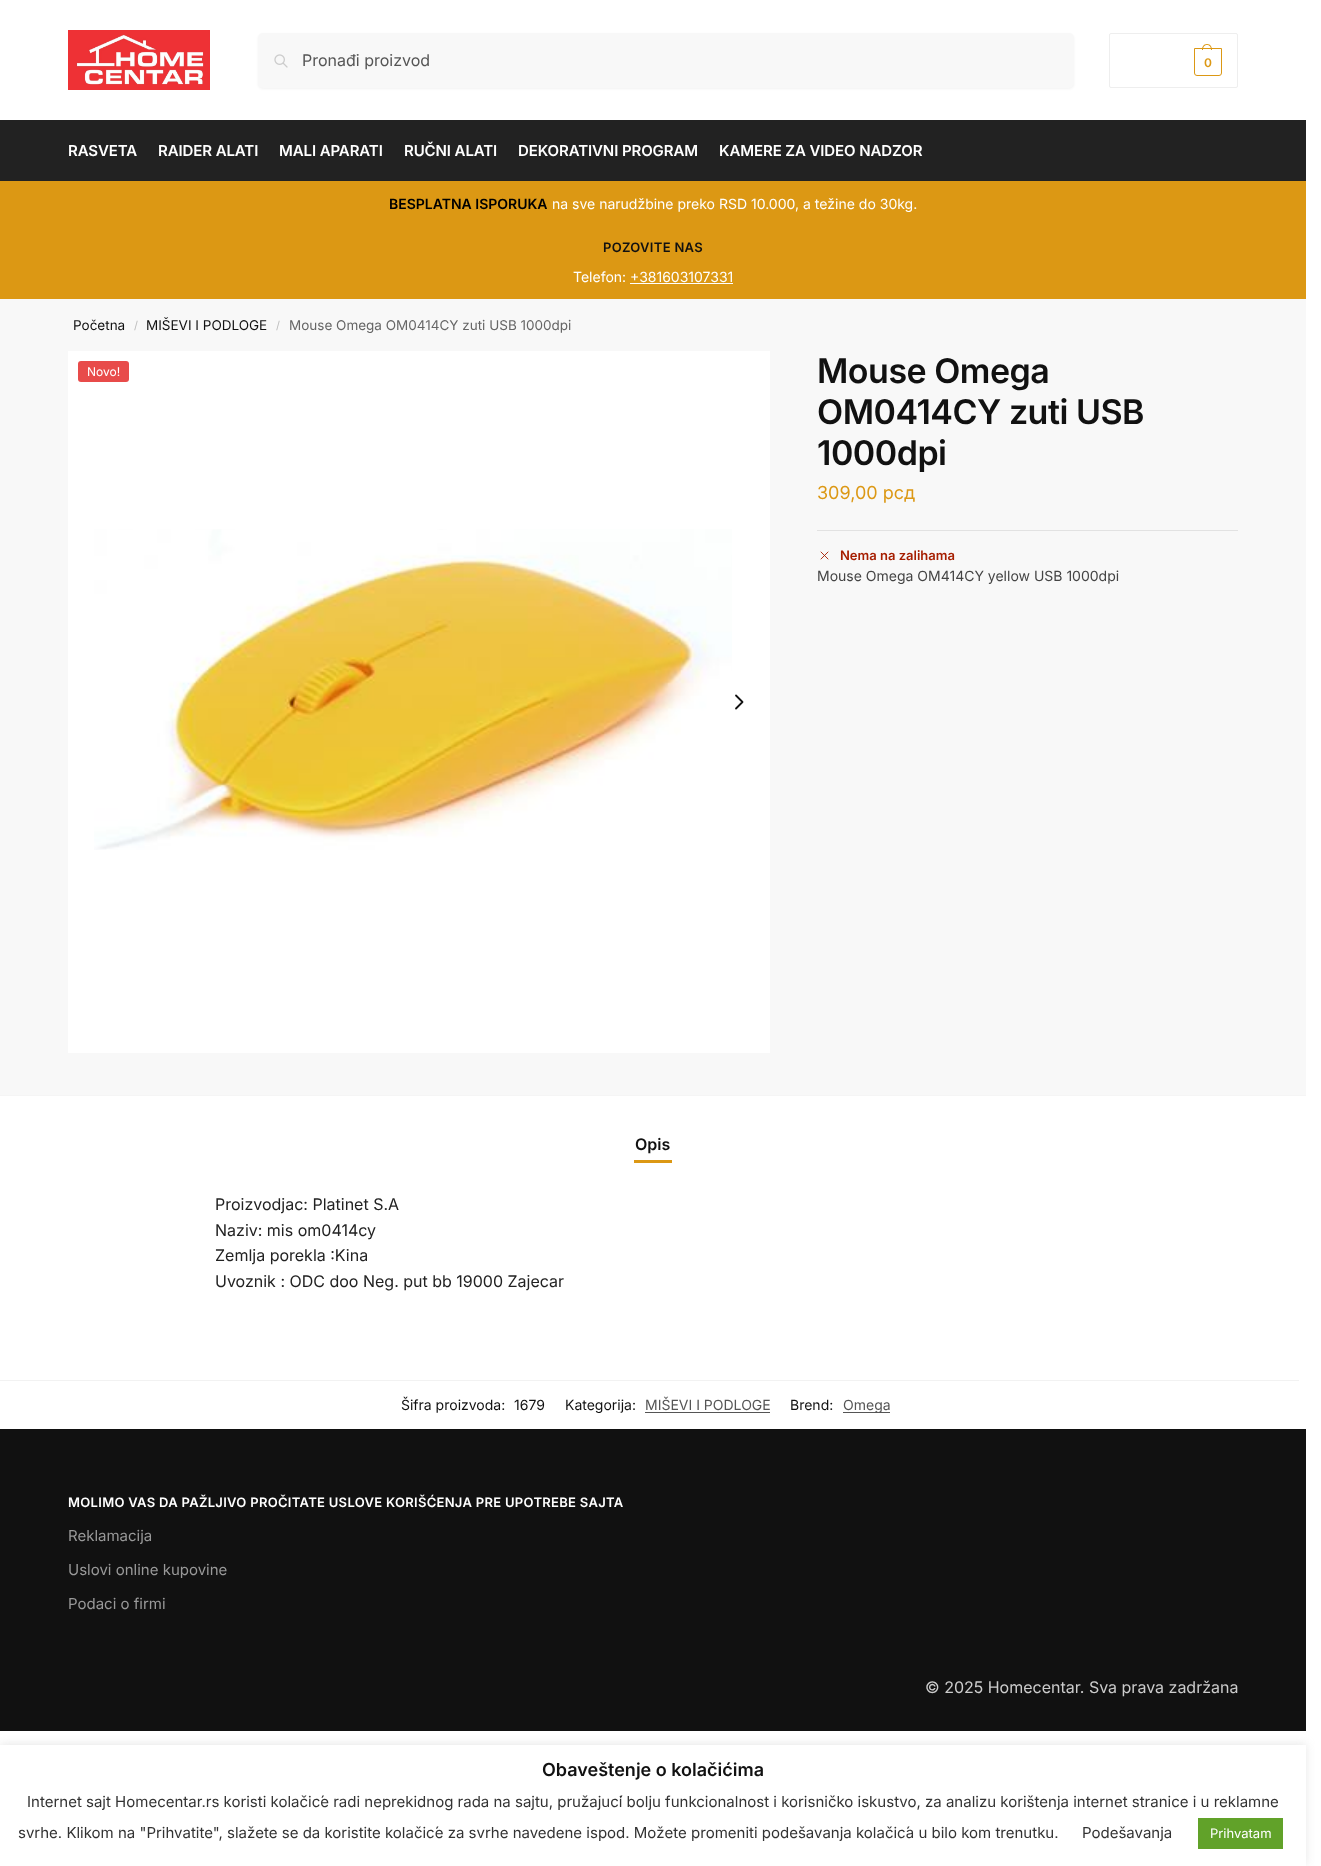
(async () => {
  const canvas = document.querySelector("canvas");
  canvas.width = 1321;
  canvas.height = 1866;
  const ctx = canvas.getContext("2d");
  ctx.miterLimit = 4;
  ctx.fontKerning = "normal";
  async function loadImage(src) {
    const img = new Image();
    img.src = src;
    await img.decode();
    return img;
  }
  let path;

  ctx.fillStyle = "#ffffff";
  ctx.fillRect(0, 0, 1321, 1866);
  ctx.drawImage(await loadImage("img/1.png"), 68, 30, 142, 60);
  ctx.fillStyle = "rgba(0, 0, 0, 0.05)";
  ctx.filter = "blur(1px)";
  ctx.beginPath();
  ctx.roundRect(258, 34, 816, 55, 5);
  ctx.fill();
  ctx.filter = "none";
  ctx.fillStyle = "#f8f8f8";
  ctx.beginPath();
  ctx.roundRect(258, 33, 816, 55, 5);
  ctx.fill();
  ctx.drawImage(await loadImage("img/2.png"), 274, 54, 14, 14);
  ctx.beginPath();
  ctx.roundRect(1109.5, 33.5, 128, 54, 1.5);
  ctx.strokeStyle = "#eeeeee";
  ctx.stroke();
  ctx.beginPath();
  ctx.roundRect(1194.5, 48.5, 27, 27, [0, 0, 2.5, 2.5]);
  ctx.strokeStyle = "#dc9814";
  ctx.stroke();
  ctx.fillStyle = "#dc9814";
  path = new Path2D("M1207 44C1210.5 44 1212 47 1212 50H1202C1202 47 1203.5 44 1207 44ZM1207 45C1210 45 1211 47.5 1211 50H1203C1203 47.5 1204 45 1207 45Z");
  ctx.fill(path, "evenodd");
  for (const [x, y, w, h, color] of [
    [0, 120, 1306, 61, "#222222"],
    [0, 181, 1306, 118, "#dc9814"],
    [630, 283, 103, 1, "#ffffff"],
    [0, 299, 1306, 796, "#f8f8f8"],
    [68, 351, 702, 702, "#ffffff"],
  ]) {
    ctx.fillStyle = color;
    ctx.fillRect(x, y, w, h);
  }
  ctx.drawImage(await loadImage("img/3.png"), 94, 529, 638, 321);
  path = new Path2D("M736 708.5L742.5 702L736 695.5");
  ctx.strokeStyle = "#111111";
  ctx.lineWidth = 1.8;
  ctx.lineCap = "round";
  ctx.lineJoin = "round";
  ctx.stroke(path);
  ctx.fillStyle = "#e84b4a";
  ctx.beginPath();
  ctx.roundRect(78, 361, 51, 21, 3);
  ctx.fill();
  ctx.fillStyle = "#e2e2e2";
  ctx.fillRect(817, 530, 421, 1);
  path = new Path2D("M821 559L828 552M821 552L828 559");
  ctx.strokeStyle = "#a61e00";
  ctx.lineWidth = 0.9;
  ctx.stroke(path);
  for (const [x, y, w, h, color] of [
    [0, 1095, 1306, 1, "#f5f5f5"],
    [634, 1160, 38, 3, "#dc9814"],
    [0, 1380, 1299, 1, "#f2f2f2"],
    [645, 1412, 125, 1, "#555555"],
    [843, 1412, 47, 1, "#555555"],
    [0, 1429, 1306, 302, "#111111"],
  ]) {
    ctx.fillStyle = color;
    ctx.fillRect(x, y, w, h);
  }
  ctx.save();
  path = new Path2D("M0 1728H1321V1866H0ZM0 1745H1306V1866H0Z");
  ctx.clip(path, "evenodd");
  ctx.fillStyle = "rgba(172, 171, 171, 0.3)";
  ctx.filter = "blur(5px)";
  ctx.beginPath();
  ctx.rect(0, 1744, 1306, 121);
  ctx.fill();
  ctx.filter = "none";
  ctx.restore();
  ctx.fillStyle = "#61a229";
  ctx.fillRect(1198, 1818, 85, 31);
  ctx.font = "16px Inter";
  ctx.fillStyle = "#555555";
  ctx.fillText("Pronađi proizvod", 302, 66);
  ctx.letterSpacing = "-1px";
  ctx.font = "600 12px Inter";
  ctx.fillStyle = "#dc9814";
  ctx.fillText("0", 1204, 67);
  ctx.letterSpacing = "-0.1px";
  ctx.font = "600 15px Inter";
  ctx.fillStyle = "#ffffff";
  for (const [text, x, y] of [
    ["RASVETA", 68, 156],
    ["RAIDER ALATI", 158, 156],
    ["MALI APARATI", 279, 156],
    ["RUČNI ALATI", 404, 156],
    ["DEKORATIVNI PROGRAM", 518, 156],
    ["KAMERE ZA VIDEO NADZOR", 719, 156],
  ]) {
    ctx.fillText(text, x, y);
  }
  ctx.letterSpacing = "0px";
  ctx.font = "600 14px Inter";
  ctx.fillStyle = "#000000";
  ctx.fillText("BESPLATNA ISPORUKA", 389, 209);
  ctx.font = "14px Inter";
  ctx.fillStyle = "#ffffff";
  ctx.fillText("na sve narudžbine preko RSD 10.000, a težine do 30kg.", 552, 209);
  ctx.letterSpacing = "0.3px";
  ctx.font = "600 13px Inter";
  ctx.fillStyle = "#111111";
  ctx.fillText("POZOVITE NAS", 603, 252);
  ctx.letterSpacing = "0px";
  ctx.font = "14px Inter";
  ctx.fillStyle = "#ffffff";
  ctx.fillText("Telefon: +381603107331", 573, 282);
  ctx.font = "13.5px Inter";
  ctx.fillStyle = "#111111";
  ctx.fillText("Početna", 73, 330);
  ctx.font = "11px Inter";
  ctx.fillStyle = "#bebebe";
  ctx.fillText("/", 134, 329);
  ctx.font = "13.5px Inter";
  ctx.fillStyle = "#111111";
  ctx.fillText("MIŠEVI I PODLOGE", 146, 330);
  ctx.font = "11px Inter";
  ctx.fillStyle = "#bebebe";
  ctx.fillText("/", 276, 329);
  ctx.font = "13.5px Inter";
  ctx.fillStyle = "#666666";
  ctx.fillText("Mouse Omega OM0414CY zuti USB 1000dpi", 289, 330);
  ctx.font = "12px Inter";
  ctx.fillStyle = "#ffffff";
  ctx.fillText("Novo!", 87, 376);
  ctx.letterSpacing = "-0.5px";
  ctx.font = "600 34px Inter";
  ctx.fillStyle = "#111111";
  for (const [text, x, y] of [
    ["Mouse Omega", 817, 383],
    ["OM0414CY zuti USB", 817, 424],
    ["1000dpi", 817, 465],
  ]) {
    ctx.fillText(text, x, y);
  }
  ctx.letterSpacing = "0px";
  ctx.font = "18px Inter";
  ctx.fillStyle = "#dc9814";
  ctx.fillText("309,00 рсд", 817, 499);
  ctx.font = "600 13px Inter";
  ctx.fillStyle = "#a61e00";
  ctx.fillText("Nema na zalihama", 840, 560);
  ctx.font = "14px Inter";
  ctx.fillStyle = "#444444";
  ctx.fillText("Mouse Omega OM414CY yellow USB 1000dpi", 817, 581);
  ctx.font = "600 16px Inter";
  ctx.fillStyle = "#111111";
  ctx.fillText("Opis", 635, 1150);
  ctx.font = "16px Inter";
  ctx.fillStyle = "#222222";
  for (const [text, x, y] of [
    ["Proizvodjac: Platinet S.A", 215, 1210],
    ["Naziv: mis om0414cy", 215, 1236],
    ["Zemlja porekla :Kina", 215, 1261],
    ["Uvoznik : ODC doo Neg. put bb 19000 Zajecar", 215, 1287],
  ]) {
    ctx.fillText(text, x, y);
  }
  ctx.font = "14px Inter";
  ctx.fillStyle = "#111111";
  for (const [text, x, y] of [
    ["Šifra proizvoda:", 401, 1410],
    ["1679", 514, 1410],
    ["Kategorija:", 565, 1410],
  ]) {
    ctx.fillText(text, x, y);
  }
  ctx.fillStyle = "#555555";
  ctx.fillText("MIŠEVI I PODLOGE", 645, 1410);
  ctx.fillStyle = "#111111";
  ctx.fillText("Brend:", 790, 1410);
  ctx.fillStyle = "#555555";
  ctx.fillText("Omega", 843, 1410);
  ctx.letterSpacing = "0.3px";
  ctx.font = "600 13px Inter";
  ctx.fillStyle = "#ffffff";
  ctx.fillText("MOLIMO VAS DA PAŽLJIVO PROČITATE USLOVE KORIŠĆENJA PRE UPOTREBE SAJTA", 68, 1507);
  ctx.letterSpacing = "0px";
  ctx.font = "15px Inter";
  ctx.fillStyle = "#999999";
  for (const [text, x, y] of [
    ["Reklamacija", 68, 1541],
    ["Uslovi online kupovine", 68, 1575],
    ["Podaci o firmi", 68, 1609],
  ]) {
    ctx.fillText(text, x, y);
  }
  ctx.font = "16px Inter";
  ctx.fillStyle = "#cccccc";
  ctx.fillText("© 2025 Homecentar. Sva prava zadržana", 925, 1693);
  ctx.font = "600 18px Inter";
  ctx.fillStyle = "#111111";
  ctx.fillText("Obaveštenje o kolačićima", 542, 1776);
  ctx.font = "15px Inter";
  ctx.fillStyle = "#333333";
  for (const [text, x, y] of [
    ["Internet sajt Homecentar.rs koristi kolačiće radi neprekidnog rada na sajtu, pružajući bolju funkcionalnost i korisničko iskustvo, za analizu korištenja internet stranice i u reklamne", 27, 1807],
    ["svrhe. Klikom na \"Prihvatite\", slažete se da koristite kolačiće za svrhe navedene ispod. Možete promeniti podešavanja kolačića u bilo kom trenutku.", 18, 1838],
    ["Podešavanja", 1082, 1838],
  ]) {
    ctx.fillText(text, x, y);
  }
  ctx.font = "13px Inter";
  ctx.fillStyle = "#ffffff";
  ctx.fillText("Prihvatam", 1210, 1838);
})();
